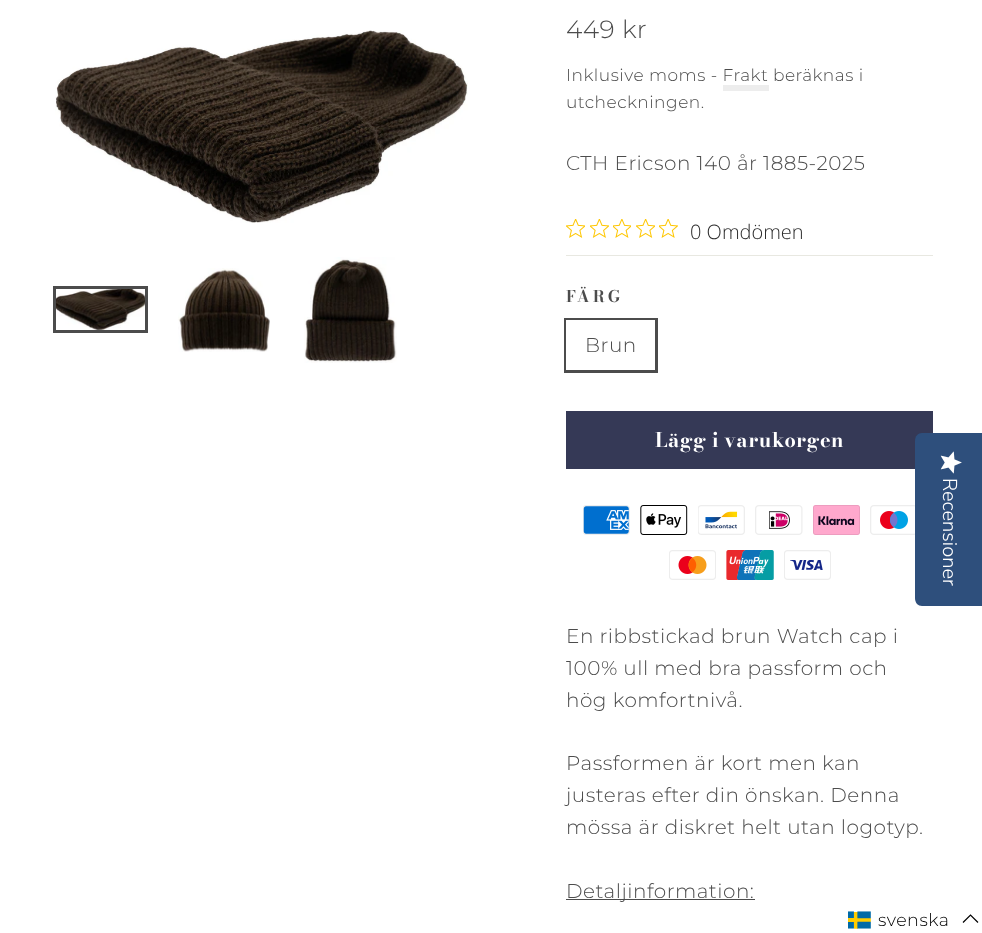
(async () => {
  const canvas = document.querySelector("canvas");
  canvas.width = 982;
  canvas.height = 933;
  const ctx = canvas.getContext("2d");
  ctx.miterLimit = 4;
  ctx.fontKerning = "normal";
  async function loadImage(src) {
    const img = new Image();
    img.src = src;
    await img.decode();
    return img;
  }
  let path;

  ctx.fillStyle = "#ffffff";
  ctx.fillRect(0, 0, 982, 933);
  ctx.drawImage(await loadImage("img/1.png"), 55, 30, 413, 193);
  ctx.drawImage(await loadImage("img/2.png"), 56, 289, 89, 41);
  ctx.strokeStyle = "#4c4c4c";
  ctx.lineWidth = 3;
  ctx.strokeRect(54.5, 287.5, 92, 44);
  ctx.drawImage(await loadImage("img/3.png"), 178, 268, 92, 84);
  ctx.drawImage(await loadImage("img/4.png"), 304, 257, 93, 106);
  ctx.fillStyle = "#ededed";
  ctx.fillRect(723, 85, 46, 6);
  ctx.drawImage(await loadImage("img/5.png"), 566, 219, 19, 19);
  ctx.drawImage(await loadImage("img/6.png"), 590, 219, 19, 19);
  ctx.drawImage(await loadImage("img/7.png"), 613, 219, 18, 19);
  ctx.drawImage(await loadImage("img/5.png"), 636, 219, 19, 19);
  ctx.drawImage(await loadImage("img/8.png"), 659, 219, 19, 19);
  ctx.fillStyle = "#e8e8e1";
  ctx.fillRect(566, 255, 367, 1);
  ctx.strokeRect(565.5, 319.5, 91, 52);
  ctx.fillStyle = "#ffffff";
  ctx.fillRect(566, 320, 89, 50);
  ctx.fillStyle = "#353956";
  ctx.fillRect(566, 411, 367, 58);
  ctx.drawImage(await loadImage("img/9.png"), 583, 505, 47, 30);
  ctx.drawImage(await loadImage("img/10.png"), 640, 505, 48, 30);
  ctx.drawImage(await loadImage("img/11.png"), 698, 505, 47, 30);
  ctx.drawImage(await loadImage("img/12.png"), 755, 505, 48, 30);
  ctx.drawImage(await loadImage("img/13.png"), 813, 505, 47, 30);
  ctx.drawImage(await loadImage("img/14.png"), 870, 505, 45, 30);
  ctx.drawImage(await loadImage("img/15.png"), 669, 550, 47, 30);
  ctx.drawImage(await loadImage("img/16.png"), 726, 550, 48, 30);
  ctx.drawImage(await loadImage("img/17.png"), 784, 550, 47, 30);
  ctx.fillStyle = "#4c4c4c";
  ctx.fillRect(566, 899, 189, 1);
  ctx.fillStyle = "#2e4f7c";
  path = new Path2D("M982 433V606H922C918 606 915 603 915 598V441C915 436 918 433 922 433Z");
  ctx.fill(path);
  ctx.drawImage(await loadImage("img/18.png"), 940, 451, 22, 23);
  ctx.drawImage(await loadImage("img/19.png"), 848, 911, 23, 18);
  path = new Path2D("M978 922.5L970.5 915L963 922.5");
  ctx.strokeStyle = "#000000";
  ctx.lineWidth = 1.2;
  ctx.stroke(path);
  ctx.letterSpacing = "0.5px";
  ctx.font = "300 25px Montserrat";
  ctx.fillStyle = "#4c4c4c";
  ctx.fillText("449 kr", 566, 38);
  ctx.font = "300 17px Montserrat";
  for (const [text, x, y] of [
    ["Inklusive moms - Frakt", 566, 81],
    ["beräknas i", 773, 81],
    ["utcheckningen.", 566, 108],
  ]) {
    ctx.fillText(text, x, y);
  }
  ctx.font = "300 20px Montserrat";
  ctx.fillText("CTH Ericson 140 år 1885-2025", 566, 170);
  ctx.letterSpacing = "0px";
  ctx.font = "300 20px Open Sans";
  ctx.fillStyle = "#2c2c2c";
  ctx.fillText("0 Omdömen", 690, 239);
  ctx.letterSpacing = "3px";
  ctx.font = "bold 16px Bodoni Moda";
  ctx.fillStyle = "#4c4c4c";
  ctx.fillText("FÄRG", 566, 302);
  ctx.letterSpacing = "0.5px";
  ctx.font = "300 20px Montserrat";
  ctx.fillText("Brun", 585, 352);
  ctx.font = "bold 20px 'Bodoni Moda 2'";
  ctx.fillStyle = "#ffffff";
  ctx.fillText("Lägg i varukorgen", 655, 447);
  ctx.font = "300 20px Montserrat";
  ctx.fillStyle = "#4c4c4c";
  for (const [text, x, y] of [
    ["En ribbstickad brun Watch cap i", 566, 643],
    ["100% ull med bra passform och", 566, 675],
    ["hög komfortnivå.", 566, 707],
    ["Passformen är kort men kan", 566, 770],
    ["justeras efter din önskan. Denna", 566, 802],
    ["mössa är diskret helt utan logotyp.", 566, 834],
    ["Detaljinformation:", 566, 898],
  ]) {
    ctx.fillText(text, x, y);
  }
  ctx.letterSpacing = "0px";
  ctx.font = "300 20px Nunito Sans";
  ctx.fillStyle = "#ffffff";
  ctx.save();
  ctx.translate(943, 478);
  ctx.rotate(90 * Math.PI / 180);
  ctx.fillText("Recensioner", 0, 0);
  ctx.restore();
  ctx.letterSpacing = "0.5px";
  ctx.font = "300 17.5px Montserrat";
  ctx.fillStyle = "#000000";
  ctx.fillText("svenska", 878, 926);
})();
